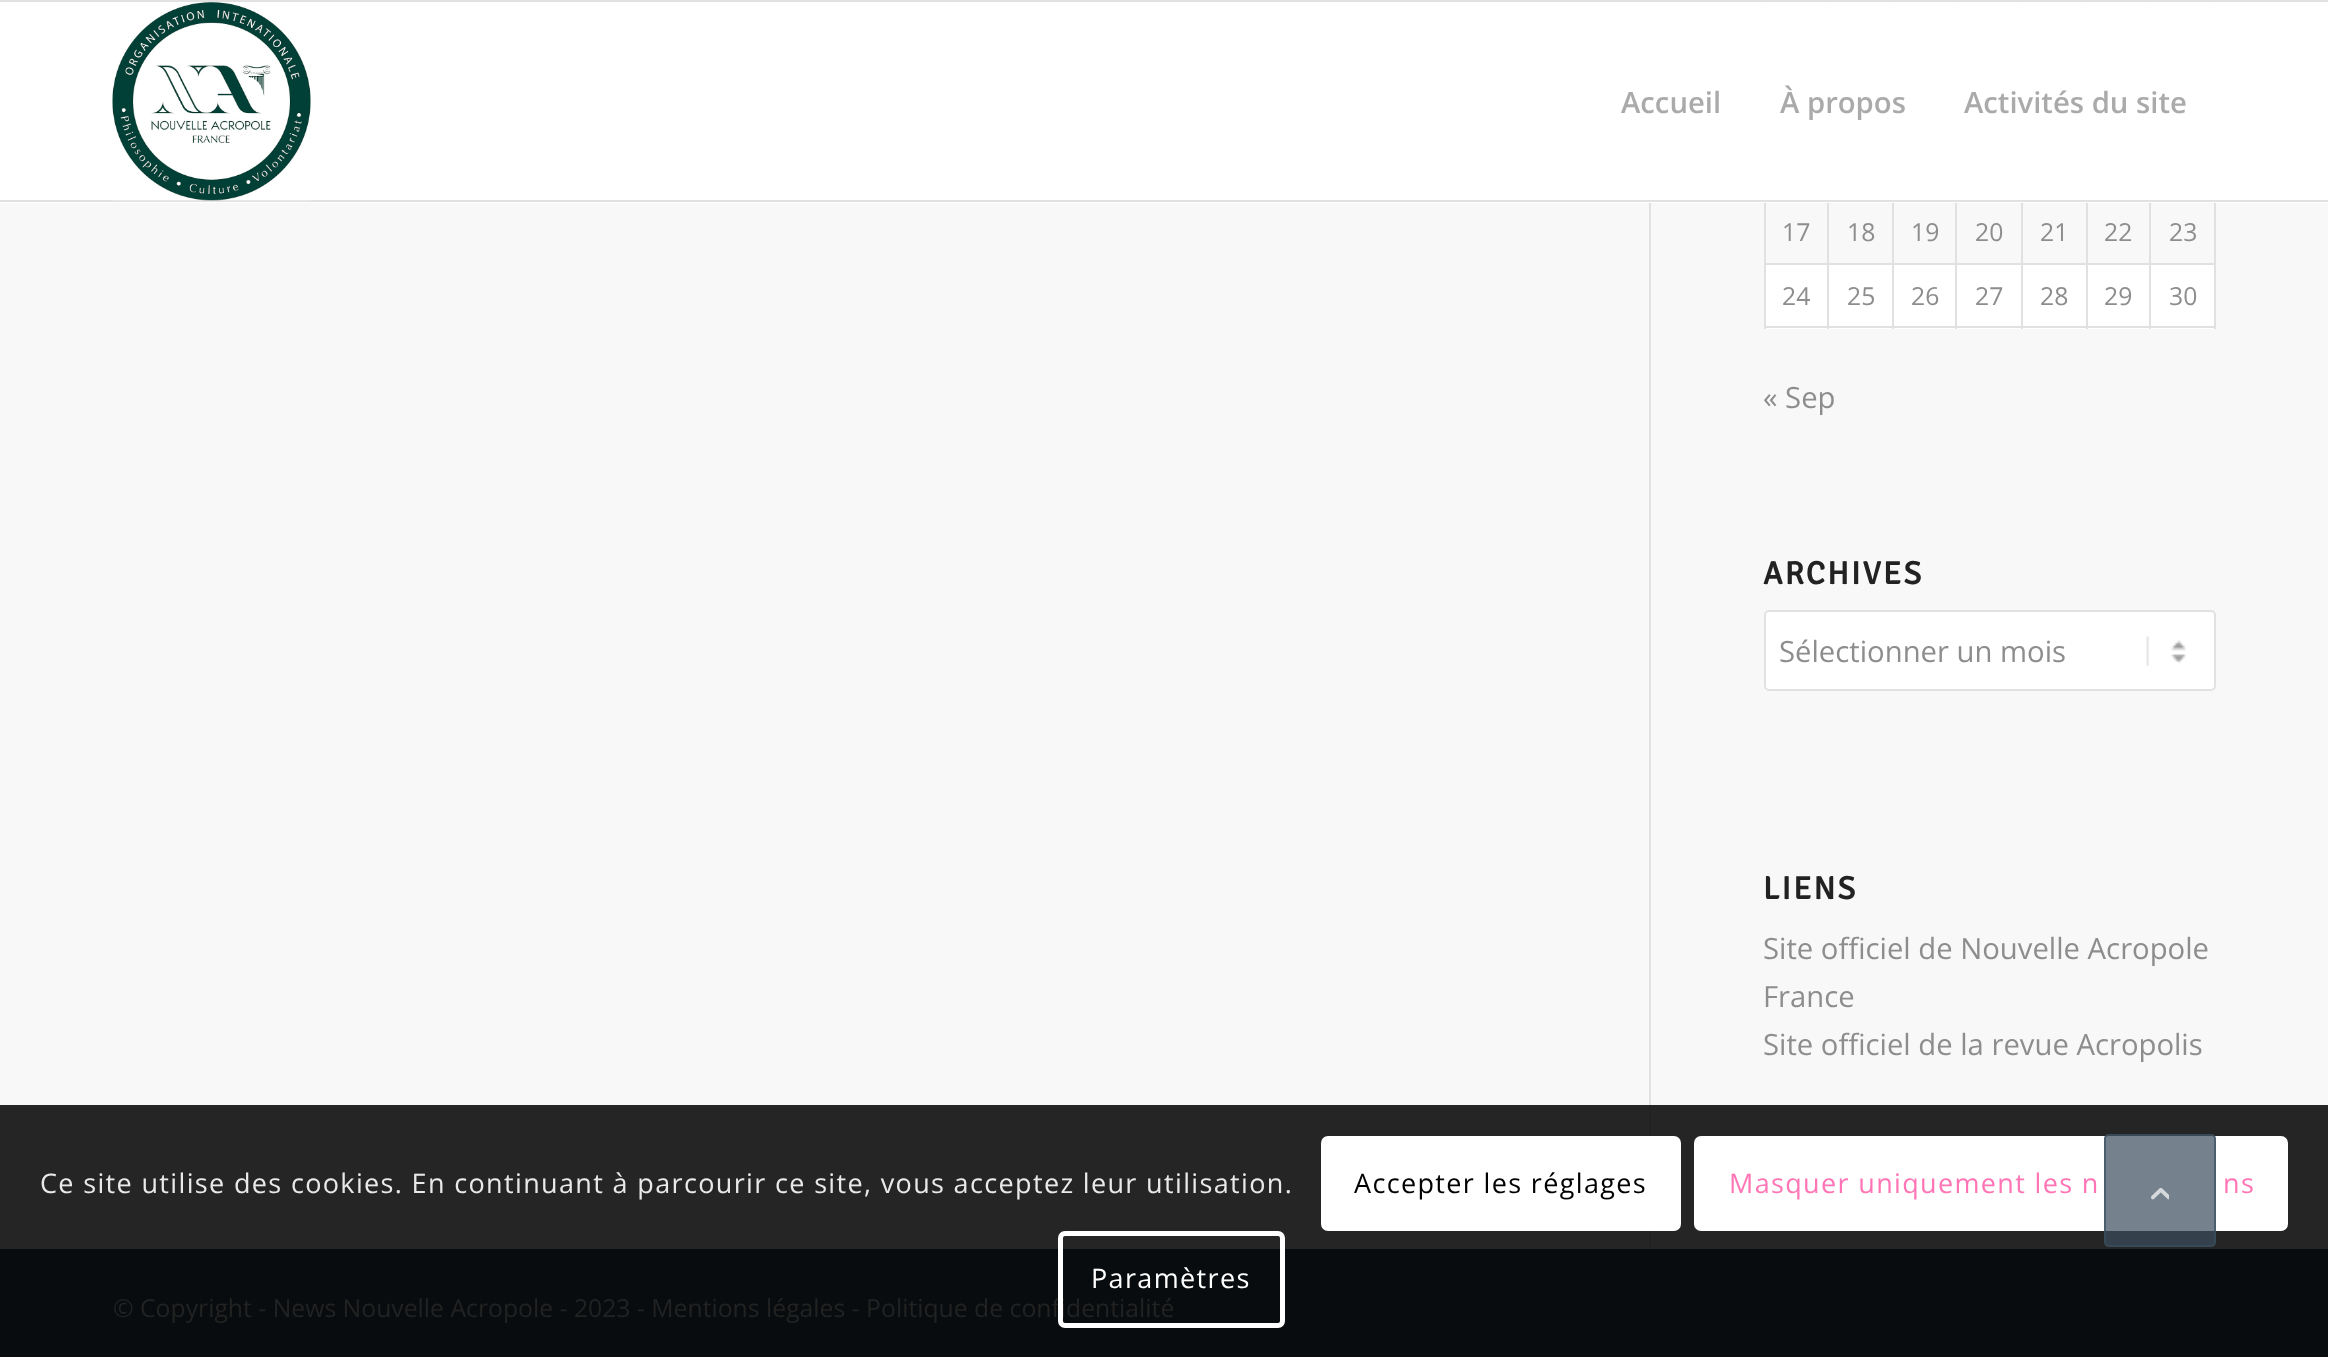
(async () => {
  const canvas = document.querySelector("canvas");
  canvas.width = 2328;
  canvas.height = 1357;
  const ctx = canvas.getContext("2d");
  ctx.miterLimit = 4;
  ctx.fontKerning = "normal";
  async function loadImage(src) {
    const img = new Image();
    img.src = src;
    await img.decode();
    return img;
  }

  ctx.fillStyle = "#f8f8f8";
  ctx.fillRect(0, 0, 2328, 1357);
  for (const [x, y, w, h, color] of [
    [1649, 0, 2, 2, "#fefefe"],
    [0, 2, 2328, 201, "#ffffff"],
    [1827, 0, 2, 9, "#fefefe"],
    [1764, 0, 2, 9, "#fefefe"],
    [1892, 0, 2, 9, "#fefefe"],
    [1955, 0, 2, 9, "#fefefe"],
    [2021, 0, 2, 9, "#fefefe"],
    [2086, 0, 2, 9, "#fefefe"],
    [2149, 0, 2, 9, "#fefefe"],
    [2214, 0, 2, 9, "#fefefe"],
    [0, 0, 2328, 2, "#e1e1e1"],
    [1766, 265, 448, 64, "#ffffff"],
    [2214, 198, 2, 131, "#e1e1e1"],
    [2149, 326, 67, 2, "#e1e1e1"],
    [2149, 263, 2, 66, "#e1e1e1"],
    [2149, 263, 67, 2, "#e1e1e1"],
    [2149, 198, 2, 68, "#e1e1e1"],
    [2086, 326, 65, 2, "#e1e1e1"],
    [2086, 263, 2, 66, "#e1e1e1"],
    [2086, 263, 65, 2, "#e1e1e1"],
    [2086, 198, 2, 68, "#e1e1e1"],
    [2021, 326, 67, 2, "#e1e1e1"],
    [2021, 263, 2, 66, "#e1e1e1"],
    [2021, 263, 67, 2, "#e1e1e1"],
    [2021, 198, 2, 68, "#e1e1e1"],
    [1955, 326, 68, 2, "#e1e1e1"],
    [1955, 263, 2, 66, "#e1e1e1"],
    [1955, 263, 68, 2, "#e1e1e1"],
    [1955, 198, 2, 68, "#e1e1e1"],
    [1892, 326, 66, 2, "#e1e1e1"],
    [1892, 263, 2, 66, "#e1e1e1"],
    [1892, 263, 66, 2, "#e1e1e1"],
    [1892, 198, 2, 68, "#e1e1e1"],
    [1827, 326, 68, 2, "#e1e1e1"],
    [1827, 263, 2, 66, "#e1e1e1"],
    [1827, 263, 68, 2, "#e1e1e1"],
    [1827, 198, 2, 68, "#e1e1e1"],
    [1827, 198, 2, 5, "#fefefe"],
    [1764, 326, 65, 2, "#e1e1e1"],
    [1764, 263, 2, 66, "#e1e1e1"],
    [1764, 263, 65, 2, "#e1e1e1"],
    [1764, 198, 2, 68, "#e1e1e1"],
    [1764, 198, 2, 5, "#fefefe"],
    [1892, 198, 2, 5, "#fefefe"],
    [1955, 198, 2, 5, "#fefefe"],
    [2021, 198, 2, 5, "#fefefe"],
    [2086, 198, 2, 5, "#fefefe"],
    [2149, 198, 2, 5, "#fefefe"],
    [2214, 198, 2, 5, "#fefefe"],
    [0, 200, 2328, 2, "#e1e1e1"],
  ]) {
    ctx.fillStyle = color;
    ctx.fillRect(x, y, w, h);
  }
  ctx.drawImage(await loadImage("img/1.png"), 112, 2, 199, 199);
  for (const [x, y, w, h, color] of [
    [0, 1105, 2328, 144, "#252525"],
    [1649, 203, 2, 902, "#e1e1e1"],
    [1649, 1105, 2, 146, "#222222"],
  ]) {
    ctx.fillStyle = color;
    ctx.fillRect(x, y, w, h);
  }
  ctx.fillStyle = "#ffffff";
  ctx.beginPath();
  ctx.roundRect(1764, 610, 452, 81, 5);
  ctx.fill();
  ctx.drawImage(await loadImage("img/2.png"), 2146, 636, 40, 30);
  ctx.beginPath();
  ctx.roundRect(1765, 611, 450, 79, 4);
  ctx.strokeStyle = "#e1e1e1";
  ctx.lineWidth = 2;
  ctx.stroke();
  ctx.fillStyle = "#090c0e";
  ctx.fillRect(0, 1249, 2328, 108);
  ctx.fillStyle = "#ffffff";
  ctx.beginPath();
  ctx.roundRect(1696.5, 1138.5, 589, 90, 4.5);
  ctx.fill();
  ctx.strokeStyle = "#ffffff";
  ctx.lineWidth = 5;
  ctx.stroke();
  ctx.fillStyle = "rgba(58, 77, 92, 0.7)";
  ctx.beginPath();
  ctx.roundRect(2104, 1134, 112, 113, 5);
  ctx.fill();
  ctx.beginPath();
  ctx.roundRect(2105, 1135, 110, 111, 4);
  ctx.strokeStyle = "rgba(58, 77, 92, 0.7)";
  ctx.lineWidth = 2;
  ctx.stroke();
  ctx.drawImage(await loadImage("img/3.png"), 2151, 1187, 18, 13);
  ctx.fillStyle = "#ffffff";
  ctx.beginPath();
  ctx.roundRect(1321, 1136, 360, 95, 7);
  ctx.fill();
  ctx.font = "600 29.25px Open Sans";
  ctx.fillStyle = "#aaaaaa";
  for (const [text, x, y] of [
    ["Accueil", 1621, 113],
    ["À propos", 1780, 113],
    ["Activités du site", 1964, 113],
  ]) {
    ctx.fillText(text, x, y);
  }
  ctx.font = "24.75px Open Sans";
  ctx.fillStyle = "#8d8d8d";
  for (const [text, x, y] of [
    ["17", 1782, 241],
    ["18", 1847, 241],
    ["19", 1911, 241],
    ["20", 1975, 241],
    ["21", 2040, 241],
    ["22", 2104, 241],
    ["23", 2169, 241],
    ["24", 1782, 305],
    ["25", 1847, 305],
    ["26", 1911, 305],
    ["27", 1975, 305],
    ["28", 2040, 305],
    ["29", 2104, 305],
    ["30", 2169, 305],
  ]) {
    ctx.fillText(text, x, y);
  }
  ctx.font = "29.25px Open Sans";
  ctx.fillText("« Sep", 1763, 408);
  ctx.letterSpacing = "2.25px";
  ctx.font = "bold 32px Signika Negative";
  ctx.fillStyle = "#222222";
  ctx.fillText("ARCHIVES", 1763, 584);
  ctx.letterSpacing = "0px";
  ctx.font = "29.25px Open Sans";
  ctx.fillStyle = "#8d8d8d";
  ctx.fillText("Sélectionner un mois", 1779, 662);
  ctx.letterSpacing = "2.25px";
  ctx.font = "bold 32px Signika Negative";
  ctx.fillStyle = "#222222";
  ctx.fillText("LIENS", 1763, 899);
  ctx.letterSpacing = "0px";
  ctx.font = "29.25px Open Sans";
  ctx.fillStyle = "#8d8d8d";
  for (const [text, x, y] of [
    ["Site officiel de Nouvelle Acropole", 1763, 959],
    ["France", 1763, 1007],
    ["Site officiel de la revue Acropolis", 1763, 1055],
  ]) {
    ctx.fillText(text, x, y);
  }
  ctx.font = "24.75px Open Sans";
  ctx.fillStyle = "#222222";
  ctx.fillText("© Copyright - News Nouvelle Acropole - 2023 - Mentions légales - Politique de confidentialité", 113, 1317);
  ctx.letterSpacing = "1.35px";
  ctx.font = "27px Open Sans";
  ctx.fillStyle = "#e9e9e9";
  ctx.fillText("Ce site utilise des cookies. En continuant à parcourir ce site, vous acceptez leur utilisation.", 40, 1193);
  ctx.fillStyle = "#000000";
  ctx.fillText("Accepter les réglages", 1354, 1193);
  ctx.fillStyle = "#ff75b5";
  ctx.fillText("Masquer uniquement les n", 1729, 1193);
  ctx.fillText("ns", 2223, 1193);
  ctx.beginPath();
  ctx.roundRect(1060.5, 1233.5, 222, 92, 4.5);
  ctx.strokeStyle = "#ffffff";
  ctx.lineWidth = 5;
  ctx.stroke();
  ctx.fillStyle = "#ffffff";
  ctx.fillText("Paramètres", 1091, 1288);
})();
